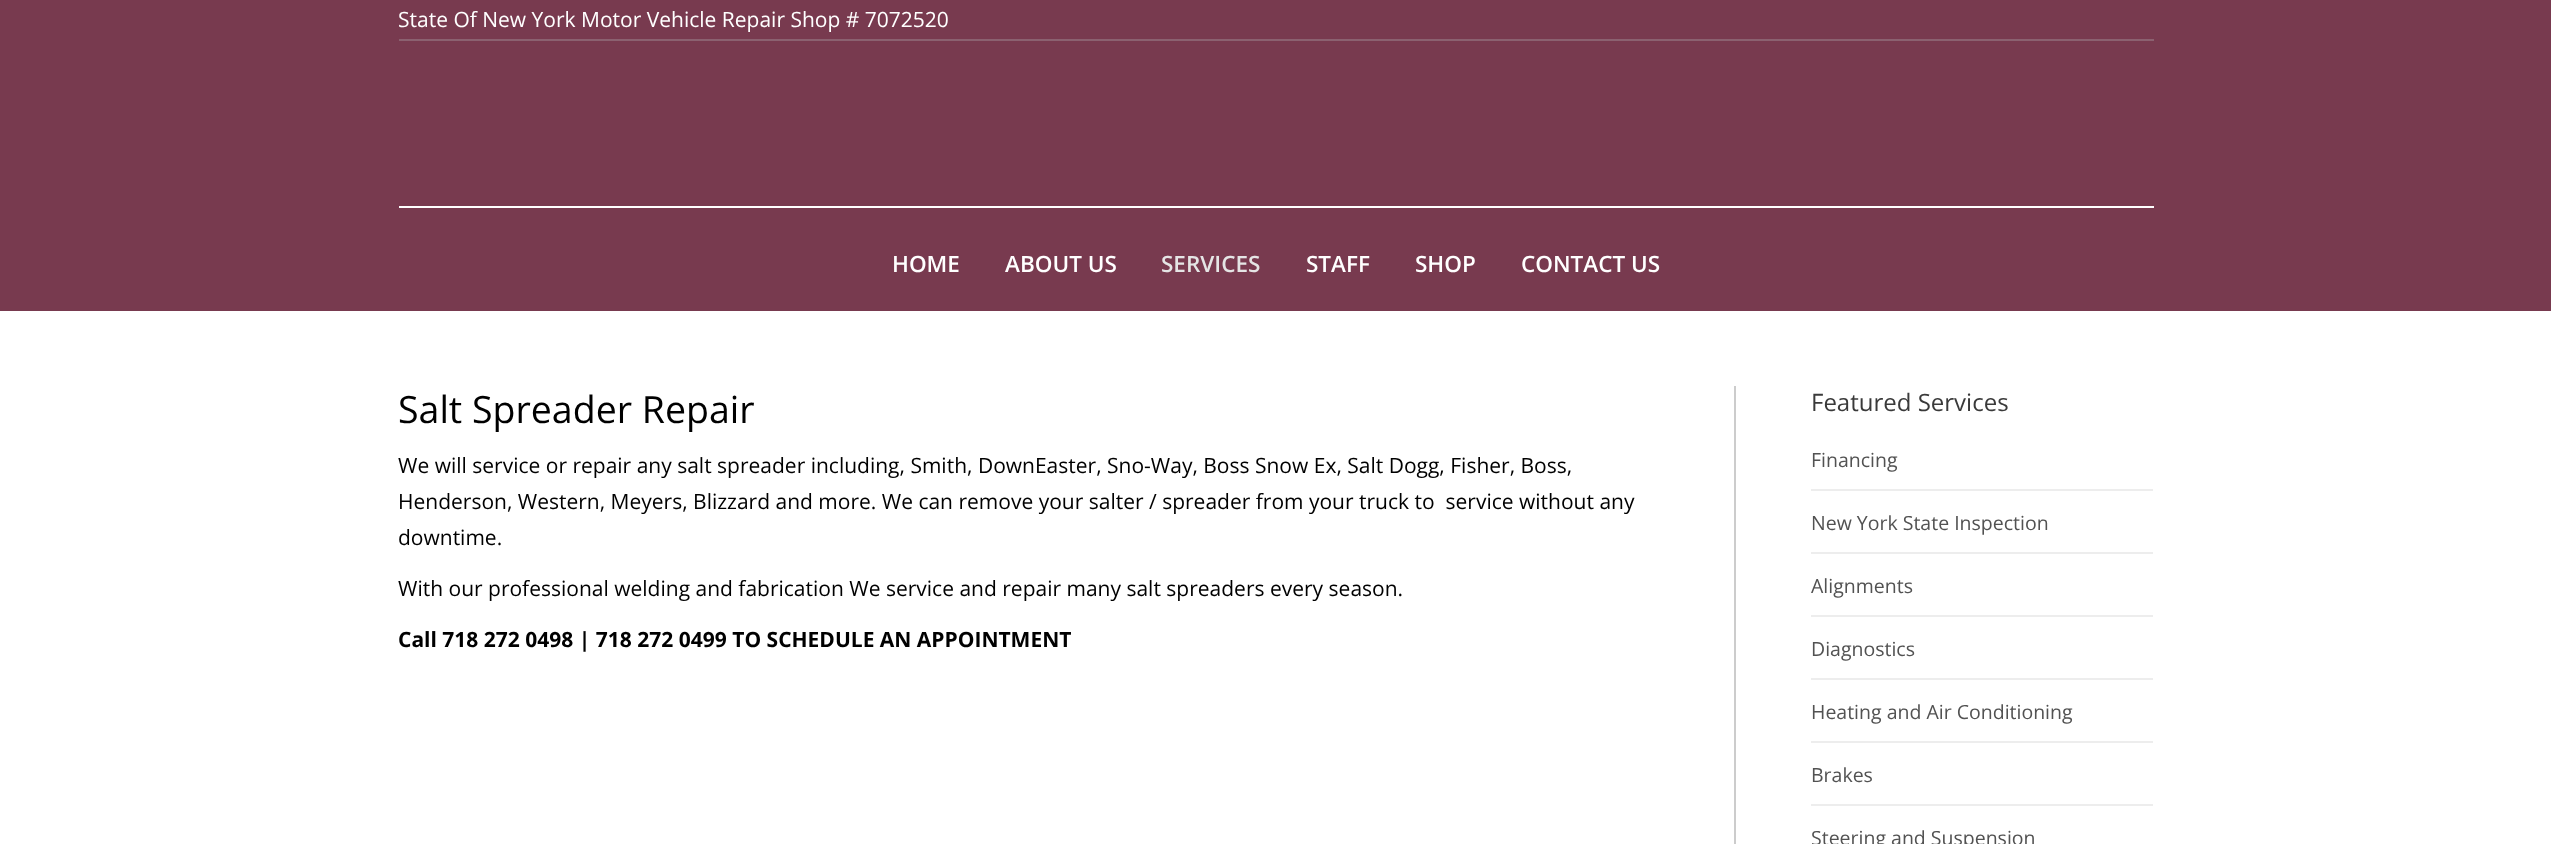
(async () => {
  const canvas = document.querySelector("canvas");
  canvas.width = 2551;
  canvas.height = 844;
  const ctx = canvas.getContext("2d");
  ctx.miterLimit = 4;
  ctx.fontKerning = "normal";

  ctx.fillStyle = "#ffffff";
  ctx.fillRect(0, 0, 2551, 844);
  for (const [x, y, w, h, color] of [
    [0, 0, 2551, 311, "#783a4f"],
    [399, 39, 1755, 2, "#8b6170"],
    [399, 206, 1755, 2, "#ffffff"],
    [1734, 386, 2, 458, "#cccccc"],
    [1811, 489, 342, 2, "#ededed"],
    [1811, 552, 342, 2, "#ededed"],
    [1811, 615, 342, 2, "#ededed"],
    [1811, 678, 342, 2, "#ededed"],
    [1811, 741, 342, 2, "#ededed"],
    [1811, 804, 342, 2, "#ededed"],
  ]) {
    ctx.fillStyle = color;
    ctx.fillRect(x, y, w, h);
  }
  ctx.font = "21px Open Sans";
  ctx.fillStyle = "#ffffff";
  ctx.fillText("State Of New York Motor Vehicle Repair Shop # 7072520", 398, 27);
  ctx.font = "600 22.5px Open Sans";
  ctx.fillText("HOME", 892, 272);
  ctx.fillText("ABOUT US", 1005, 272);
  ctx.fillStyle = "#e5e5e5";
  ctx.fillText("SERVICES", 1161, 272);
  ctx.fillStyle = "#ffffff";
  for (const [text, x, y] of [
    ["STAFF", 1306, 272],
    ["SHOP", 1415, 272],
    ["CONTACT US", 1521, 272],
  ]) {
    ctx.fillText(text, x, y);
  }
  ctx.font = "37.5px Open Sans";
  ctx.fillStyle = "#000000";
  ctx.fillText("Salt Spreader Repair", 398, 423);
  ctx.font = "21px Open Sans";
  for (const [text, x, y] of [
    ["We will service or repair any salt spreader including, Smith, DownEaster, Sno-Way, Boss Snow Ex, Salt Dogg, Fisher, Boss,", 398, 473],
    ["Henderson, Western, Meyers, Blizzard and more. We can remove your salter / spreader from your truck to  service without any", 398, 509],
    ["downtime.", 398, 545],
    ["With our professional welding and fabrication We service and repair many salt spreaders every season.", 398, 596],
  ]) {
    ctx.fillText(text, x, y);
  }
  ctx.font = "bold 21px Open Sans";
  ctx.fillText("Call 718 272 0498 | 718 272 0499 TO SCHEDULE AN APPOINTMENT", 398, 647);
  ctx.font = "24px Open Sans";
  ctx.fillStyle = "#3a3a3a";
  ctx.fillText("Featured Services", 1811, 411);
  ctx.font = "19.5px Open Sans";
  ctx.fillStyle = "#525252";
  for (const [text, x, y] of [
    ["Financing", 1811, 467],
    ["New York State Inspection", 1811, 530],
    ["Alignments", 1811, 593],
    ["Diagnostics", 1811, 656],
    ["Heating and Air Conditioning", 1811, 719],
    ["Brakes", 1811, 782],
    ["Steering and Suspension", 1811, 845],
  ]) {
    ctx.fillText(text, x, y);
  }
})();
